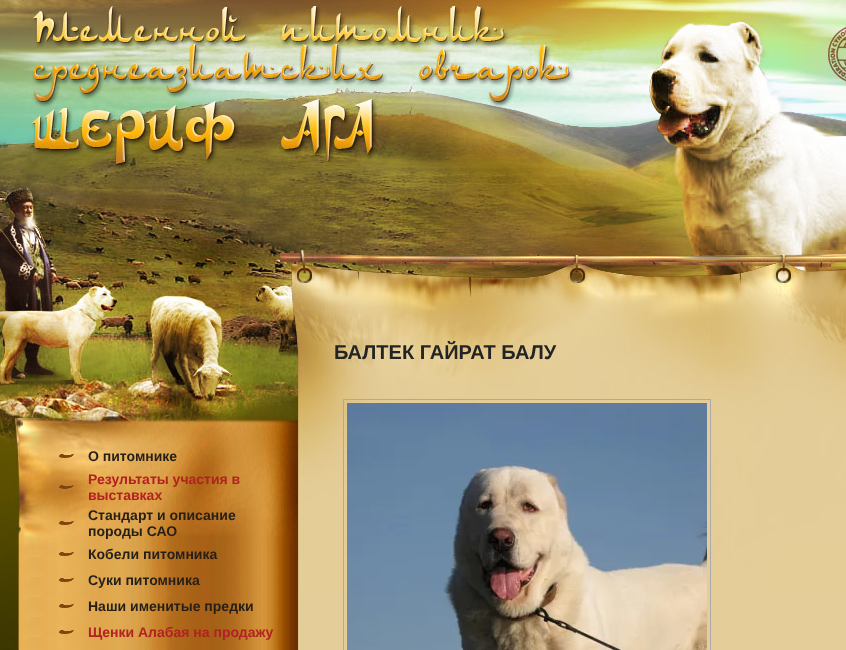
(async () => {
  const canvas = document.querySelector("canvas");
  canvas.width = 846;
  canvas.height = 650;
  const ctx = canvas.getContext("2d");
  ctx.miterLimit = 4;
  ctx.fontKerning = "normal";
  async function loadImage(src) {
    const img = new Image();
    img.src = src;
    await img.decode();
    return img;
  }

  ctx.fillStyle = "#ffffff";
  ctx.fillRect(0, 0, 846, 650);
  ctx.drawImage(await loadImage("img/1.png"), 0, 0, 4, 324);
  ctx.drawImage(await loadImage("img/2.png"), 0, 324, 4, 326);
  ctx.drawImage(await loadImage("img/3.png"), 4, 0, 245, 162);
  ctx.drawImage(await loadImage("img/4.png"), 249, 0, 245, 162);
  ctx.drawImage(await loadImage("img/5.png"), 494, 0, 245, 162);
  ctx.drawImage(await loadImage("img/6.png"), 739, 0, 107, 162);
  ctx.drawImage(await loadImage("img/7.png"), 4, 162, 245, 162);
  ctx.drawImage(await loadImage("img/8.png"), 249, 162, 245, 162);
  ctx.drawImage(await loadImage("img/9.png"), 494, 162, 245, 162);
  ctx.drawImage(await loadImage("img/10.png"), 739, 162, 107, 162);
  ctx.fillStyle = "#e4cd98";
  ctx.fillRect(299, 596, 547, 54);
  ctx.fillStyle = "#dbc48e";
  ctx.fillRect(298, 596, 1, 54);
  ctx.drawImage(await loadImage("img/11.png"), 298, 324, 548, 272);
  ctx.strokeStyle = "#aaaaaa";
  ctx.strokeRect(343.5, 399.5, 367, 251);
  ctx.drawImage(await loadImage("img/12.png"), 347, 403, 360, 247);
  ctx.drawImage(await loadImage("img/13.png"), 4, 324, 294, 109);
  ctx.drawImage(await loadImage("img/14.png"), 4, 433, 14, 217);
  ctx.drawImage(await loadImage("img/15.png"), 18, 547, 280, 103);
  ctx.drawImage(await loadImage("img/16.png"), 12, 433, 286, 114);
  ctx.drawImage(await loadImage("img/17.png"), 59, 454, 15, 4);
  ctx.drawImage(await loadImage("img/18.png"), 59, 485, 15, 4);
  ctx.drawImage(await loadImage("img/19.png"), 59, 521, 15, 4);
  ctx.drawImage(await loadImage("img/20.png"), 59, 552, 15, 4);
  ctx.drawImage(await loadImage("img/21.png"), 59, 578, 15, 4);
  ctx.drawImage(await loadImage("img/22.png"), 59, 604, 15, 4);
  ctx.drawImage(await loadImage("img/23.png"), 59, 630, 15, 4);
  ctx.font = "bold 20px Liberation Sans";
  ctx.fillStyle = "#242424";
  ctx.fillText("БАЛТЕК ГАЙРАТ БАЛУ", 334, 359);
  ctx.font = "bold 14px Liberation Sans";
  ctx.fillStyle = "#261f18";
  ctx.fillText("О питомнике", 88, 461);
  ctx.fillStyle = "#b22222";
  ctx.fillText("Результаты участия в", 88, 484);
  ctx.fillText("выставках", 88, 500);
  ctx.fillStyle = "#261f18";
  for (const [text, x, y] of [
    ["Стандарт и описание", 88, 520],
    ["породы САО", 88, 536],
    ["Кобели питомника", 88, 559],
    ["Суки питомника", 88, 585],
    ["Наши именитые предки", 88, 611],
  ]) {
    ctx.fillText(text, x, y);
  }
  ctx.fillStyle = "#b22222";
  ctx.fillText("Щенки Алабая на продажу", 88, 637);
})();
